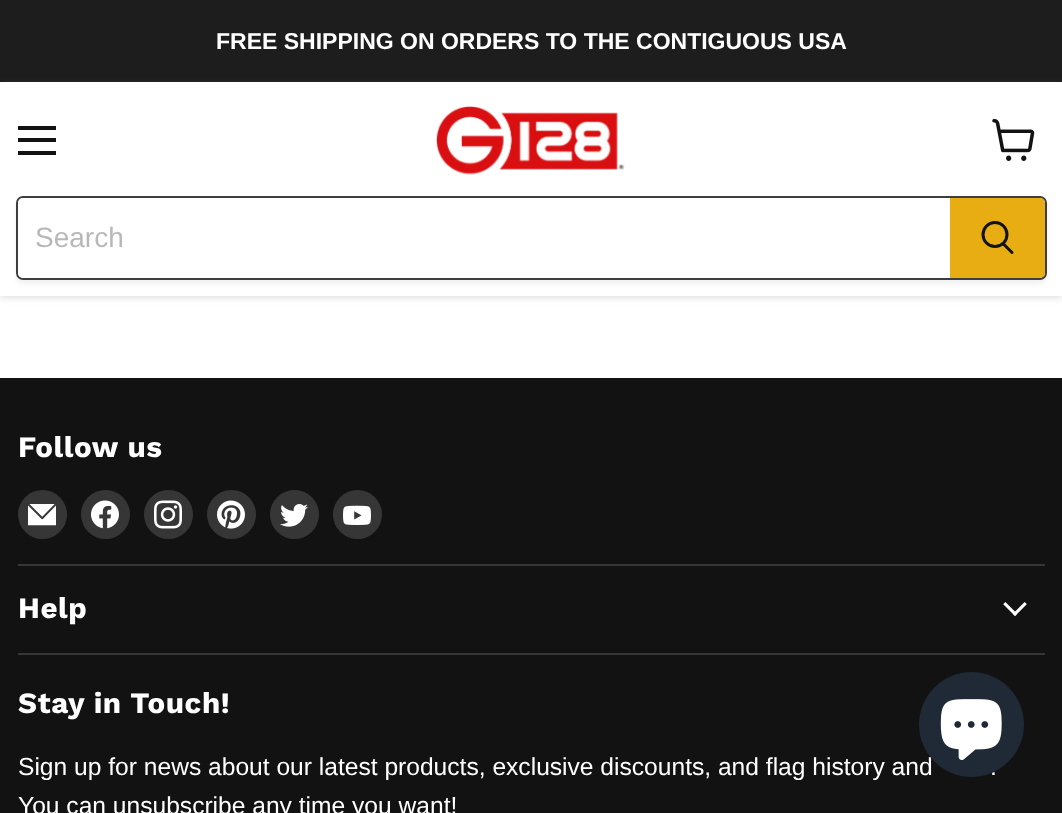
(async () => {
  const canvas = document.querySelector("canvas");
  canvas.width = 1062;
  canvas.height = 813;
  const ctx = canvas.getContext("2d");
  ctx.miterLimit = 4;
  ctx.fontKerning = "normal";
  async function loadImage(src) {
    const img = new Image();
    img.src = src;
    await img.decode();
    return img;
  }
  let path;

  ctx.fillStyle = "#ffffff";
  ctx.fillRect(0, 0, 1062, 813);
  ctx.fillStyle = "#1d1d1d";
  ctx.fillRect(0, 0, 1062, 82);
  ctx.fillStyle = "rgba(128, 128, 128, 0.25)";
  ctx.filter = "blur(3.5px)";
  ctx.beginPath();
  ctx.rect(0, 84, 1062, 214);
  ctx.fill();
  ctx.filter = "none";
  for (const [x, y, w, h, color] of [
    [0, 82, 1062, 214, "#ffffff"],
    [18, 126, 38, 4, "#121212"],
    [18, 138, 38, 4, "#121212"],
    [18, 151, 38, 4, "#121212"],
  ]) {
    ctx.fillStyle = color;
    ctx.fillRect(x, y, w, h);
  }
  ctx.drawImage(await loadImage("img/1.png"), 992, 119, 43, 42);
  ctx.drawImage(await loadImage("img/2.png"), 436, 106, 189, 69);
  ctx.fillStyle = "rgba(128, 128, 128, 0.11)";
  ctx.filter = "blur(2.5px)";
  ctx.beginPath();
  ctx.roundRect(16, 200, 1031, 84, 7);
  ctx.fill();
  ctx.filter = "none";
  ctx.beginPath();
  ctx.roundRect(17, 197, 1029, 82, 6);
  ctx.strokeStyle = "#3f3e3e";
  ctx.lineWidth = 2;
  ctx.stroke();
  ctx.fillStyle = "#ffffff";
  ctx.beginPath();
  ctx.roundRect(18, 198, 932, 80, [5, 0, 0, 5]);
  ctx.fill();
  ctx.fillStyle = "#e9ad14";
  ctx.beginPath();
  ctx.roundRect(951, 199, 93, 78, [0, 4, 4, 0]);
  ctx.fill();
  ctx.strokeStyle = "#e9ad14";
  ctx.stroke();
  path = new Path2D("M1012 252.5L1003.5 244");
  ctx.strokeStyle = "#121212";
  ctx.lineWidth = 3;
  ctx.lineCap = "round";
  ctx.stroke(path);
  ctx.beginPath();
  ctx.arc(995, 234.5, 12, 0, Math.PI * 2);
  ctx.stroke();
  ctx.fillStyle = "#121212";
  ctx.fillRect(0, 378, 1062, 435);
  ctx.fillStyle = "#363636";
  ctx.fillRect(18, 564, 1027, 2);
  ctx.beginPath();
  ctx.arc(42.5, 514.5, 24.5, 0, Math.PI * 2);
  ctx.fill();
  ctx.drawImage(await loadImage("img/3.png"), 28, 504, 28, 22);
  ctx.beginPath();
  ctx.arc(105.5, 514.5, 24.5, 0, Math.PI * 2);
  ctx.fill();
  ctx.drawImage(await loadImage("img/4.png"), 91, 500, 28, 29);
  ctx.beginPath();
  ctx.arc(168.5, 514.5, 24.5, 0, Math.PI * 2);
  ctx.fill();
  ctx.drawImage(await loadImage("img/5.png"), 154, 500, 28, 29);
  ctx.beginPath();
  ctx.arc(231.5, 514.5, 24.5, 0, Math.PI * 2);
  ctx.fill();
  ctx.drawImage(await loadImage("img/6.png"), 217, 500, 28, 29);
  ctx.beginPath();
  ctx.arc(294.5, 514.5, 24.5, 0, Math.PI * 2);
  ctx.fill();
  ctx.drawImage(await loadImage("img/7.png"), 280, 504, 28, 23);
  ctx.beginPath();
  ctx.arc(357.5, 514.5, 24.5, 0, Math.PI * 2);
  ctx.fill();
  ctx.drawImage(await loadImage("img/8.png"), 343, 505, 28, 20);
  ctx.fillRect(18, 653, 1027, 2);
  ctx.drawImage(await loadImage("img/9.png"), 1003, 602, 24, 14);
  ctx.font = "bold 23px Liberation Sans";
  ctx.fillStyle = "#ffffff";
  ctx.fillText("FREE SHIPPING ON ORDERS TO THE CONTIGUOUS USA", 216, 49);
  ctx.font = "28px Liberation Sans";
  ctx.fillStyle = "#b8b8b8";
  ctx.fillText("Search", 35, 247);
  ctx.letterSpacing = "0.6px";
  ctx.font = "bold 29.5px Work Sans";
  ctx.fillStyle = "#ffffff";
  for (const [text, x, y] of [
    ["Follow us", 18, 457],
    ["Help", 18, 618],
    ["Stay in Touch!", 18, 713],
  ]) {
    ctx.fillText(text, x, y);
  }
  ctx.letterSpacing = "0px";
  ctx.font = "24.6px Liberation Sans";
  for (const [text, x, y] of [
    ["Sign up for news about our latest products, exclusive discounts, and flag history and", 18, 775],
    [".", 990, 775],
    ["You can unsubscribe any time you want!", 18, 814],
  ]) {
    ctx.fillText(text, x, y);
  }
  ctx.fillStyle = "#202a36";
  ctx.beginPath();
  ctx.arc(971.5, 724.5, 52.5, 0, Math.PI * 2);
  ctx.fill();
  ctx.drawImage(await loadImage("img/10.png"), 940, 699, 62, 61);
})();
